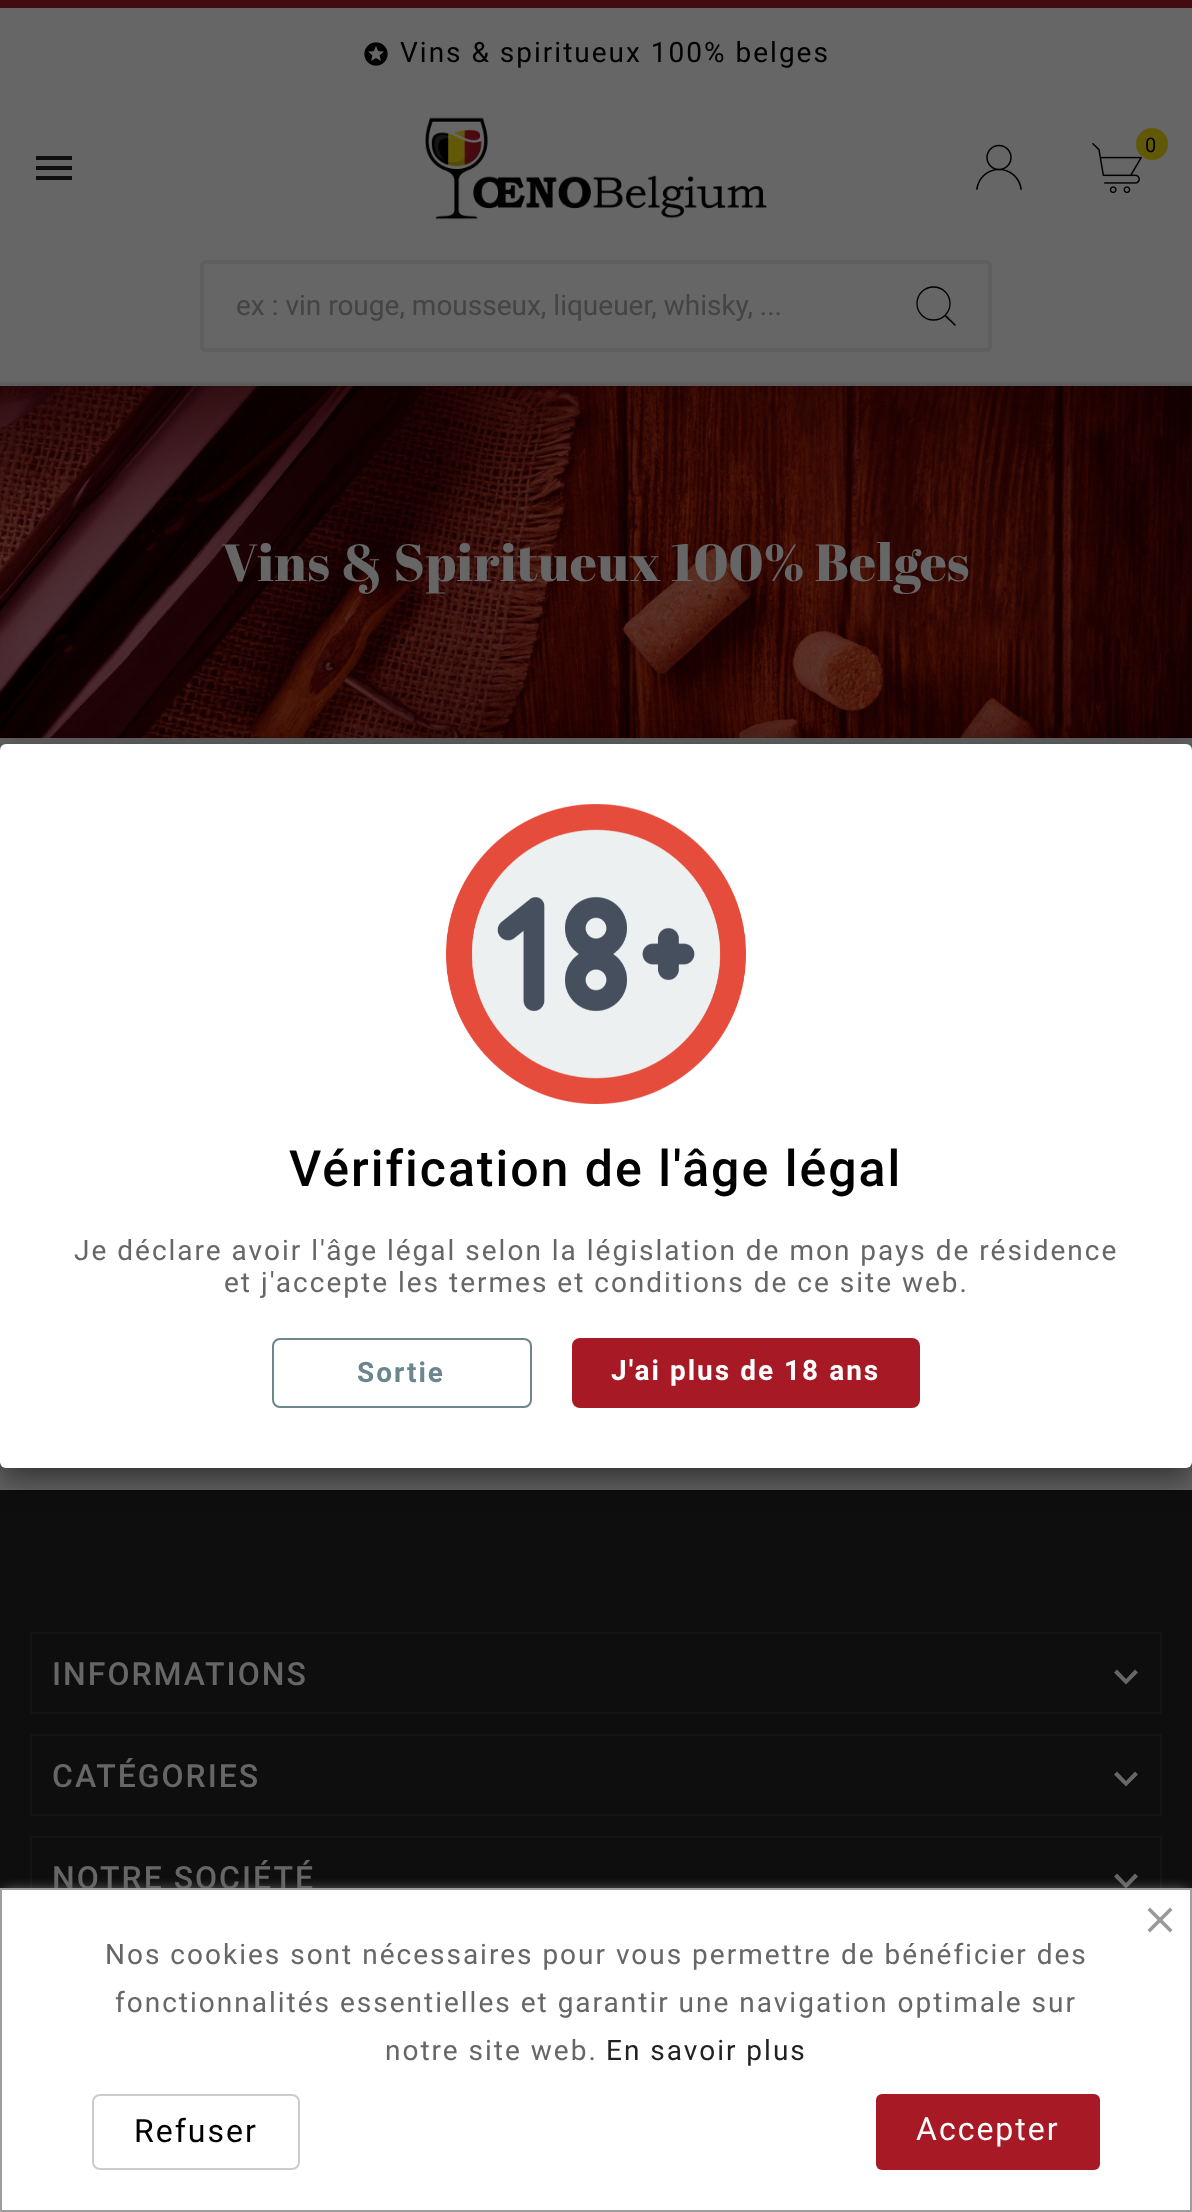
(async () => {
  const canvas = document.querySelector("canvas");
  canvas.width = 1192;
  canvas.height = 2212;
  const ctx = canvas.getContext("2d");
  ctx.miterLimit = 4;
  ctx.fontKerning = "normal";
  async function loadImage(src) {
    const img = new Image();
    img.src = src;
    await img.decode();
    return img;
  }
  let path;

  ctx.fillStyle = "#626262";
  ctx.fillRect(0, 0, 1192, 2212);
  for (const [x, y, w, h, color] of [
    [0, 8, 1192, 374, "#666666"],
    [0, 0, 1192, 8, "#430a0f"],
    [0, 384, 1192, 2, "#5c5c5c"],
    [0, 382, 1192, 2, "#5f5f5f"],
  ]) {
    ctx.fillStyle = color;
    ctx.fillRect(x, y, w, h);
  }
  ctx.drawImage(await loadImage("img/1.png"), 364, 42, 24, 24);
  ctx.drawImage(await loadImage("img/2.png"), 425, 117, 342, 103);
  ctx.drawImage(await loadImage("img/3.png"), 976, 144, 46, 46);
  ctx.drawImage(await loadImage("img/4.png"), 1092, 143, 50, 51);
  ctx.fillStyle = "#625908";
  ctx.beginPath();
  ctx.arc(1152, 144, 16, 0, Math.PI * 2);
  ctx.fill();
  ctx.fillStyle = "#0e0e0e";
  path = new Path2D("M36 156H72V160H36ZM36 170V166H72V170ZM36 180V176H72V180Z");
  ctx.fill(path);
  ctx.beginPath();
  ctx.roundRect(202, 262, 788, 88, 4);
  ctx.strokeStyle = "#5f5f5f";
  ctx.lineWidth = 4;
  ctx.stroke();
  ctx.fillStyle = "#666666";
  ctx.fillRect(204, 264, 1, 84);
  ctx.fillRect(987, 264, 1, 84);
  ctx.fillStyle = "#000000";
  path = new Path2D("M955 326L944.5 316L945.5 314.5L956 325Z");
  ctx.fill(path);
  ctx.fillStyle = "#666666";
  ctx.beginPath();
  ctx.arc(933.5, 303.5, 16, 0, Math.PI * 2);
  ctx.fill();
  ctx.beginPath();
  ctx.arc(933.5, 303.5, 16.5, 0, Math.PI * 2);
  ctx.strokeStyle = "#000000";
  ctx.lineWidth = 1.3;
  ctx.stroke();
  ctx.drawImage(await loadImage("img/5.png"), 0, 386, 1192, 352);
  ctx.fillStyle = "#0e0e0e";
  ctx.fillRect(0, 1492, 1192, 396);
  ctx.fillStyle = "#0d0d0d";
  ctx.fillRect(0, 1490, 1192, 2);
  ctx.fillStyle = "rgba(0, 0, 0, 0.5)";
  ctx.filter = "blur(15px)";
  ctx.beginPath();
  ctx.roundRect(0, 754, 1192, 724, 6);
  ctx.fill();
  ctx.filter = "none";
  ctx.fillStyle = "#ffffff";
  ctx.beginPath();
  ctx.roundRect(0, 744, 1192, 724, 6);
  ctx.fill();
  ctx.drawImage(await loadImage("img/6.png"), 446, 804, 300, 300);
  ctx.beginPath();
  ctx.roundRect(273, 1339, 258, 68, 7);
  ctx.strokeStyle = "#6c868e";
  ctx.lineWidth = 2;
  ctx.stroke();
  ctx.fillStyle = "#a71a25";
  ctx.beginPath();
  ctx.roundRect(572, 1338, 348, 70, 8);
  ctx.fill();
  ctx.strokeStyle = "#141414";
  ctx.strokeRect(31, 1633, 1130, 80);
  ctx.fillStyle = "#666666";
  path = new Path2D("M1117 1669.5L1126 1679L1135 1669.5L1138 1672.5L1126 1684.5L1114 1672.5Z");
  ctx.fill(path);
  ctx.strokeRect(31, 1735, 1130, 80);
  path = new Path2D("M1117 1771.5L1126 1781L1135 1771.5L1138 1774.5L1126 1786.5L1114 1774.5Z");
  ctx.fill(path);
  ctx.strokeRect(31, 1837, 1130, 80);
  path = new Path2D("M1117 1873.5L1126 1883L1135 1873.5L1138 1876.5L1126 1888.5L1114 1876.5Z");
  ctx.fill(path);
  ctx.fillStyle = "#9e9e9e";
  ctx.filter = "blur(7px)";
  ctx.beginPath();
  ctx.rect(4, 1892, 1184, 316);
  ctx.fill();
  ctx.filter = "none";
  ctx.letterSpacing = "2px";
  ctx.font = "28px Roboto";
  ctx.fillStyle = "#000000";
  ctx.fillText("Vins & spiritueux 100% belges", 400, 62);
  ctx.font = "20px Roboto";
  ctx.fillText("0", 1145, 152);
  ctx.letterSpacing = "0px";
  ctx.font = "28px Roboto";
  ctx.fillStyle = "#444444";
  ctx.fillText("ex : vin rouge, mousseux, liqueuer, whisky, ...", 236, 315);
  ctx.letterSpacing = "0.6px";
  ctx.font = "52px Abril Fatface";
  ctx.fillStyle = "#666666";
  ctx.fillText("Vins & Spiritueux 100% Belges", 222, 581);
  ctx.letterSpacing = "2px";
  ctx.font = "500 50px Roboto";
  ctx.fillStyle = "#000000";
  ctx.fillText("Vérification de l'âge légal", 289, 1186);
  ctx.font = "28px Roboto";
  ctx.fillStyle = "#666666";
  ctx.fillText("Je déclare avoir l'âge légal selon la législation de mon pays de résidence", 74, 1260);
  ctx.fillText("et j'accepte les termes et conditions de ce site web.", 224, 1292);
  ctx.font = "bold 28px Roboto";
  ctx.fillStyle = "#6c868e";
  ctx.fillText("Sortie", 357, 1382);
  ctx.fillStyle = "#ffffff";
  ctx.fillText("J'ai plus de 18 ans", 611, 1380);
  ctx.font = "500 32px Roboto";
  ctx.fillStyle = "#666666";
  for (const [text, x, y] of [
    ["INFORMATIONS", 52, 1685],
    ["CATÉGORIES", 52, 1787],
    ["NOTRE SOCIÉTÉ", 52, 1889],
  ]) {
    ctx.fillText(text, x, y);
  }
  ctx.fillStyle = "#ffffff";
  ctx.beginPath();
  ctx.rect(1, 1889, 1190, 322);
  ctx.fill();
  ctx.strokeStyle = "#9e9e9e";
  ctx.stroke();
  ctx.fillStyle = "#999999";
  path = new Path2D("M1147.5 1930L1170 1907.5L1172.5 1910L1150 1932.5Z");
  ctx.fill(path);
  path = new Path2D("M1150 1907.5L1172.5 1930L1170 1932.5L1147.5 1910Z");
  ctx.fill(path);
  ctx.font = "28px Roboto";
  ctx.fillStyle = "#666666";
  for (const [text, x, y] of [
    ["Nos cookies sont nécessaires pour vous permettre de bénéficier des", 105, 1964],
    ["fonctionnalités essentielles et garantir une navigation optimale sur", 115, 2012],
    ["notre site web.", 385, 2060],
  ]) {
    ctx.fillText(text, x, y);
  }
  ctx.fillStyle = "#222222";
  ctx.fillText("En savoir plus", 606, 2060);
  ctx.beginPath();
  ctx.roundRect(93, 2095, 206, 74, 7);
  ctx.strokeStyle = "#cccccc";
  ctx.stroke();
  ctx.font = "32px Roboto";
  ctx.fillStyle = "#000000";
  ctx.fillText("Refuser", 134, 2142);
  ctx.fillStyle = "#a71a25";
  ctx.beginPath();
  ctx.roundRect(876, 2094, 224, 76, 6);
  ctx.fill();
  ctx.fillStyle = "#ffffff";
  ctx.fillText("Accepter", 916, 2140);
})();
